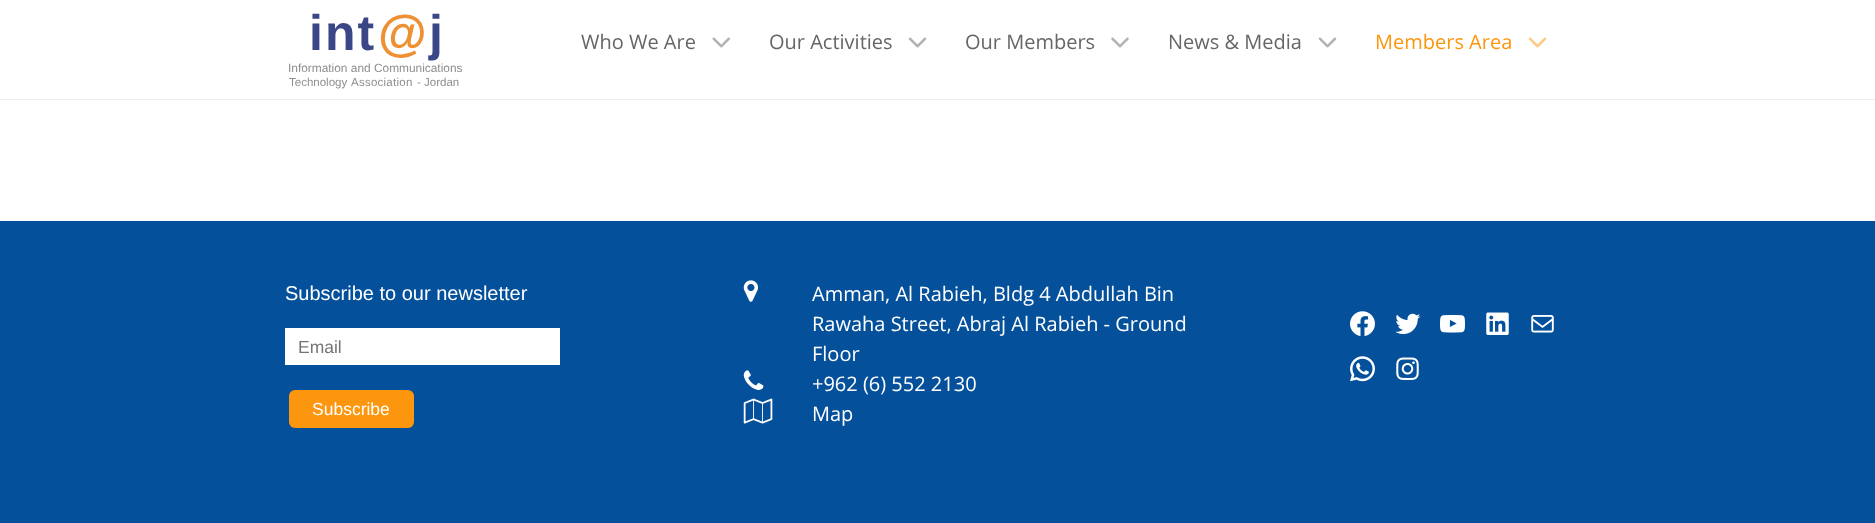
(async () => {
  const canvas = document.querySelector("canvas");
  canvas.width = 1875;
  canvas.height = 523;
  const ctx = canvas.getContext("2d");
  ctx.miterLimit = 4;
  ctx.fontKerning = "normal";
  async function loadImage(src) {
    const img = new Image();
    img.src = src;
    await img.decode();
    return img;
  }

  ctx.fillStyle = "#ffffff";
  ctx.fillRect(0, 0, 1875, 523);
  ctx.fillStyle = "#ecf0f1";
  ctx.fillRect(0, 99, 1875, 1);
  ctx.drawImage(await loadImage("img/1.png"), 712, 37, 18, 11);
  ctx.drawImage(await loadImage("img/2.png"), 908, 37, 19, 11);
  ctx.drawImage(await loadImage("img/3.png"), 1111, 37, 18, 11);
  ctx.drawImage(await loadImage("img/2.png"), 1318, 37, 19, 11);
  ctx.drawImage(await loadImage("img/4.png"), 1528, 37, 19, 11);
  for (const [x, y, w, h, color] of [
    [0, 222, 1875, 301, "#04509b"],
    [0, 221, 1875, 1, "#044c93"],
    [285, 328, 275, 37, "#ffffff"],
  ]) {
    ctx.fillStyle = color;
    ctx.fillRect(x, y, w, h);
  }
  ctx.fillStyle = "#fc960e";
  ctx.beginPath();
  ctx.roundRect(289, 390, 125, 38, 6);
  ctx.fill();
  ctx.drawImage(await loadImage("img/5.png"), 743, 280, 15, 22);
  ctx.drawImage(await loadImage("img/6.png"), 743, 370, 21, 20);
  ctx.drawImage(await loadImage("img/7.png"), 743, 398, 30, 26);
  ctx.drawImage(await loadImage("img/8.png"), 1350, 311, 25, 26);
  ctx.drawImage(await loadImage("img/9.png"), 1395, 313, 26, 22);
  ctx.drawImage(await loadImage("img/10.png"), 1440, 314, 25, 19);
  ctx.drawImage(await loadImage("img/11.png"), 1486, 312, 23, 23);
  ctx.drawImage(await loadImage("img/12.png"), 1531, 315, 23, 18);
  ctx.drawImage(await loadImage("img/13.png"), 1350, 356, 25, 26);
  ctx.drawImage(await loadImage("img/14.png"), 1396, 357, 23, 23);
  ctx.letterSpacing = "2px";
  ctx.font = "bold 50px Liberation Sans";
  ctx.fillStyle = "#3a4686";
  ctx.fillText("int", 309, 50);
  ctx.fillStyle = "#ee9135";
  ctx.fillText("@", 378, 50);
  ctx.fillStyle = "#3a4686";
  ctx.fillText("j", 429, 50);
  ctx.letterSpacing = "0px";
  ctx.font = "11.9px Liberation Sans";
  ctx.fillStyle = "#8e8e8e";
  ctx.fillText("Information and Communications", 288, 72);
  ctx.font = "11.5px Liberation Sans";
  ctx.fillText("Technology", 289, 86);
  ctx.letterSpacing = "0.25px";
  ctx.fillText("Association", 351, 86);
  ctx.letterSpacing = "0px";
  ctx.fillText("- Jordan", 417, 86);
  ctx.font = "20px Open Sans";
  ctx.fillStyle = "#666666";
  for (const [text, x, y] of [
    ["Who We Are", 581, 49],
    ["Our Activities", 769, 49],
    ["Our Members", 965, 49],
    ["News & Media", 1168, 49],
  ]) {
    ctx.fillText(text, x, y);
  }
  ctx.fillStyle = "#fc960e";
  ctx.fillText("Members Area", 1375, 49);
  ctx.font = "20px Liberation Sans";
  ctx.fillStyle = "#ffffff";
  ctx.fillText("Subscribe to our newsletter", 285, 300);
  ctx.font = "17.5px Liberation Sans";
  ctx.fillStyle = "#757575";
  ctx.fillText("Email", 298, 353);
  ctx.fillStyle = "#ffffff";
  ctx.fillText("Subscribe", 312, 415);
  ctx.font = "20px Open Sans";
  for (const [text, x, y] of [
    ["Amman, Al Rabieh, Bldg 4 Abdullah Bin", 812, 301],
    ["Rawaha Street, Abraj Al Rabieh - Ground", 812, 331],
    ["Floor", 812, 361],
    ["+962 (6) 552 2130", 812, 391],
    ["Map", 812, 421],
  ]) {
    ctx.fillText(text, x, y);
  }
})();
